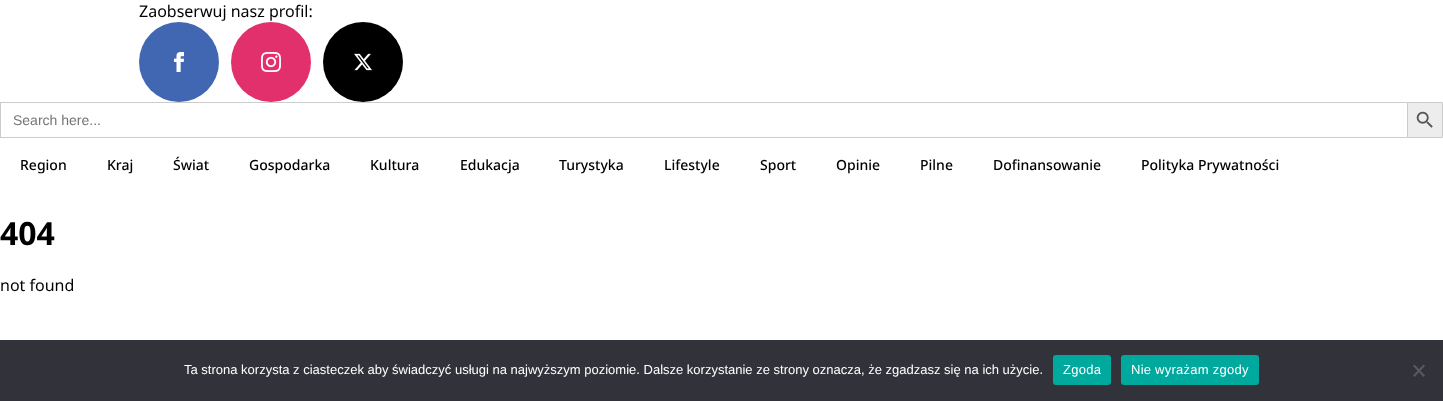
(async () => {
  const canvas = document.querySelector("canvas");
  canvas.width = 1443;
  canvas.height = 401;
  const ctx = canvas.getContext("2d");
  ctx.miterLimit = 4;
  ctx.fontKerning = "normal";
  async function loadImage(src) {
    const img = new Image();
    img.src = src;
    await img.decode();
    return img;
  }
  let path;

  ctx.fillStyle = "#ffffff";
  ctx.fillRect(0, 0, 1443, 401);
  ctx.fillStyle = "#4267b2";
  ctx.beginPath();
  ctx.arc(179, 62, 40, 0, Math.PI * 2);
  ctx.fill();
  ctx.drawImage(await loadImage("img/1.png"), 174, 52, 10, 20);
  ctx.fillStyle = "#e1306c";
  ctx.beginPath();
  ctx.arc(271, 62, 40, 0, Math.PI * 2);
  ctx.fill();
  ctx.drawImage(await loadImage("img/2.png"), 261, 52, 20, 20);
  ctx.fillStyle = "#000000";
  ctx.beginPath();
  ctx.arc(363, 62, 40, 0, Math.PI * 2);
  ctx.fill();
  ctx.drawImage(await loadImage("img/3.png"), 354, 53, 18, 18);
  for (const [x, y, w, h, color] of [
    [0, 102, 1407, 1, "#cccccc"],
    [0, 137, 1407, 1, "#cccccc"],
    [0, 102, 1, 36, "#cccccc"],
  ]) {
    ctx.fillStyle = color;
    ctx.fillRect(x, y, w, h);
  }
  ctx.fillStyle = "#ededed";
  ctx.beginPath();
  ctx.rect(1407.5, 102.5, 35, 35);
  ctx.fill();
  ctx.strokeStyle = "#cccccc";
  ctx.stroke();
  ctx.drawImage(await loadImage("img/4.png"), 1416, 111, 17, 17);
  ctx.fillStyle = "#32323a";
  ctx.fillRect(0, 340, 1443, 61);
  ctx.fillStyle = "#00a99d";
  ctx.beginPath();
  ctx.roundRect(1053, 355, 58, 30, 3);
  ctx.fill();
  ctx.beginPath();
  ctx.roundRect(1121, 355, 138, 30, 3);
  ctx.fill();
  ctx.fillStyle = "#59595d";
  path = new Path2D("M1423.5 364.5L1425 366L1414.5 377L1413 375.5Z");
  ctx.fill(path);
  path = new Path2D("M1413 366L1414.5 364.5L1425 375.5L1423.5 377Z");
  ctx.fill(path);
  ctx.font = "16px Noto Sans";
  ctx.fillStyle = "#000000";
  ctx.fillText("Zaobserwuj nasz profil:", 139, 17);
  ctx.font = "14px Liberation Sans";
  ctx.fillStyle = "#757575";
  ctx.fillText("Search here...", 13, 125);
  ctx.font = "500 14px Noto Sans";
  ctx.fillStyle = "#000000";
  for (const [text, x, y] of [
    ["Region", 20, 170],
    ["Kraj", 107, 170],
    ["Świat", 173, 170],
    ["Gospodarka", 249, 170],
    ["Kultura", 370, 170],
    ["Edukacja", 460, 170],
    ["Turystyka", 559, 170],
    ["Lifestyle", 664, 170],
    ["Sport", 760, 170],
    ["Opinie", 836, 170],
    ["Pilne", 920, 170],
    ["Dofinansowanie", 993, 170],
    ["Polityka Prywatności", 1141, 170],
  ]) {
    ctx.fillText(text, x, y);
  }
  ctx.font = "bold 32px Noto Sans";
  ctx.fillText("404", 0, 245);
  ctx.font = "16px Noto Sans";
  ctx.fillText("not found", 0, 291);
  ctx.font = "13px Liberation Sans";
  ctx.fillStyle = "#ffffff";
  ctx.fillText("Ta strona korzysta z ciasteczek aby świadczyć usługi na najwyższym poziomie. Dalsze korzystanie ze strony oznacza, że zgadzasz się na ich użycie.", 184, 374);
  ctx.letterSpacing = "0.25px";
  ctx.fillText("Zgoda", 1063, 374);
  ctx.fillText("Nie wyrażam zgody", 1131, 374);
})();
